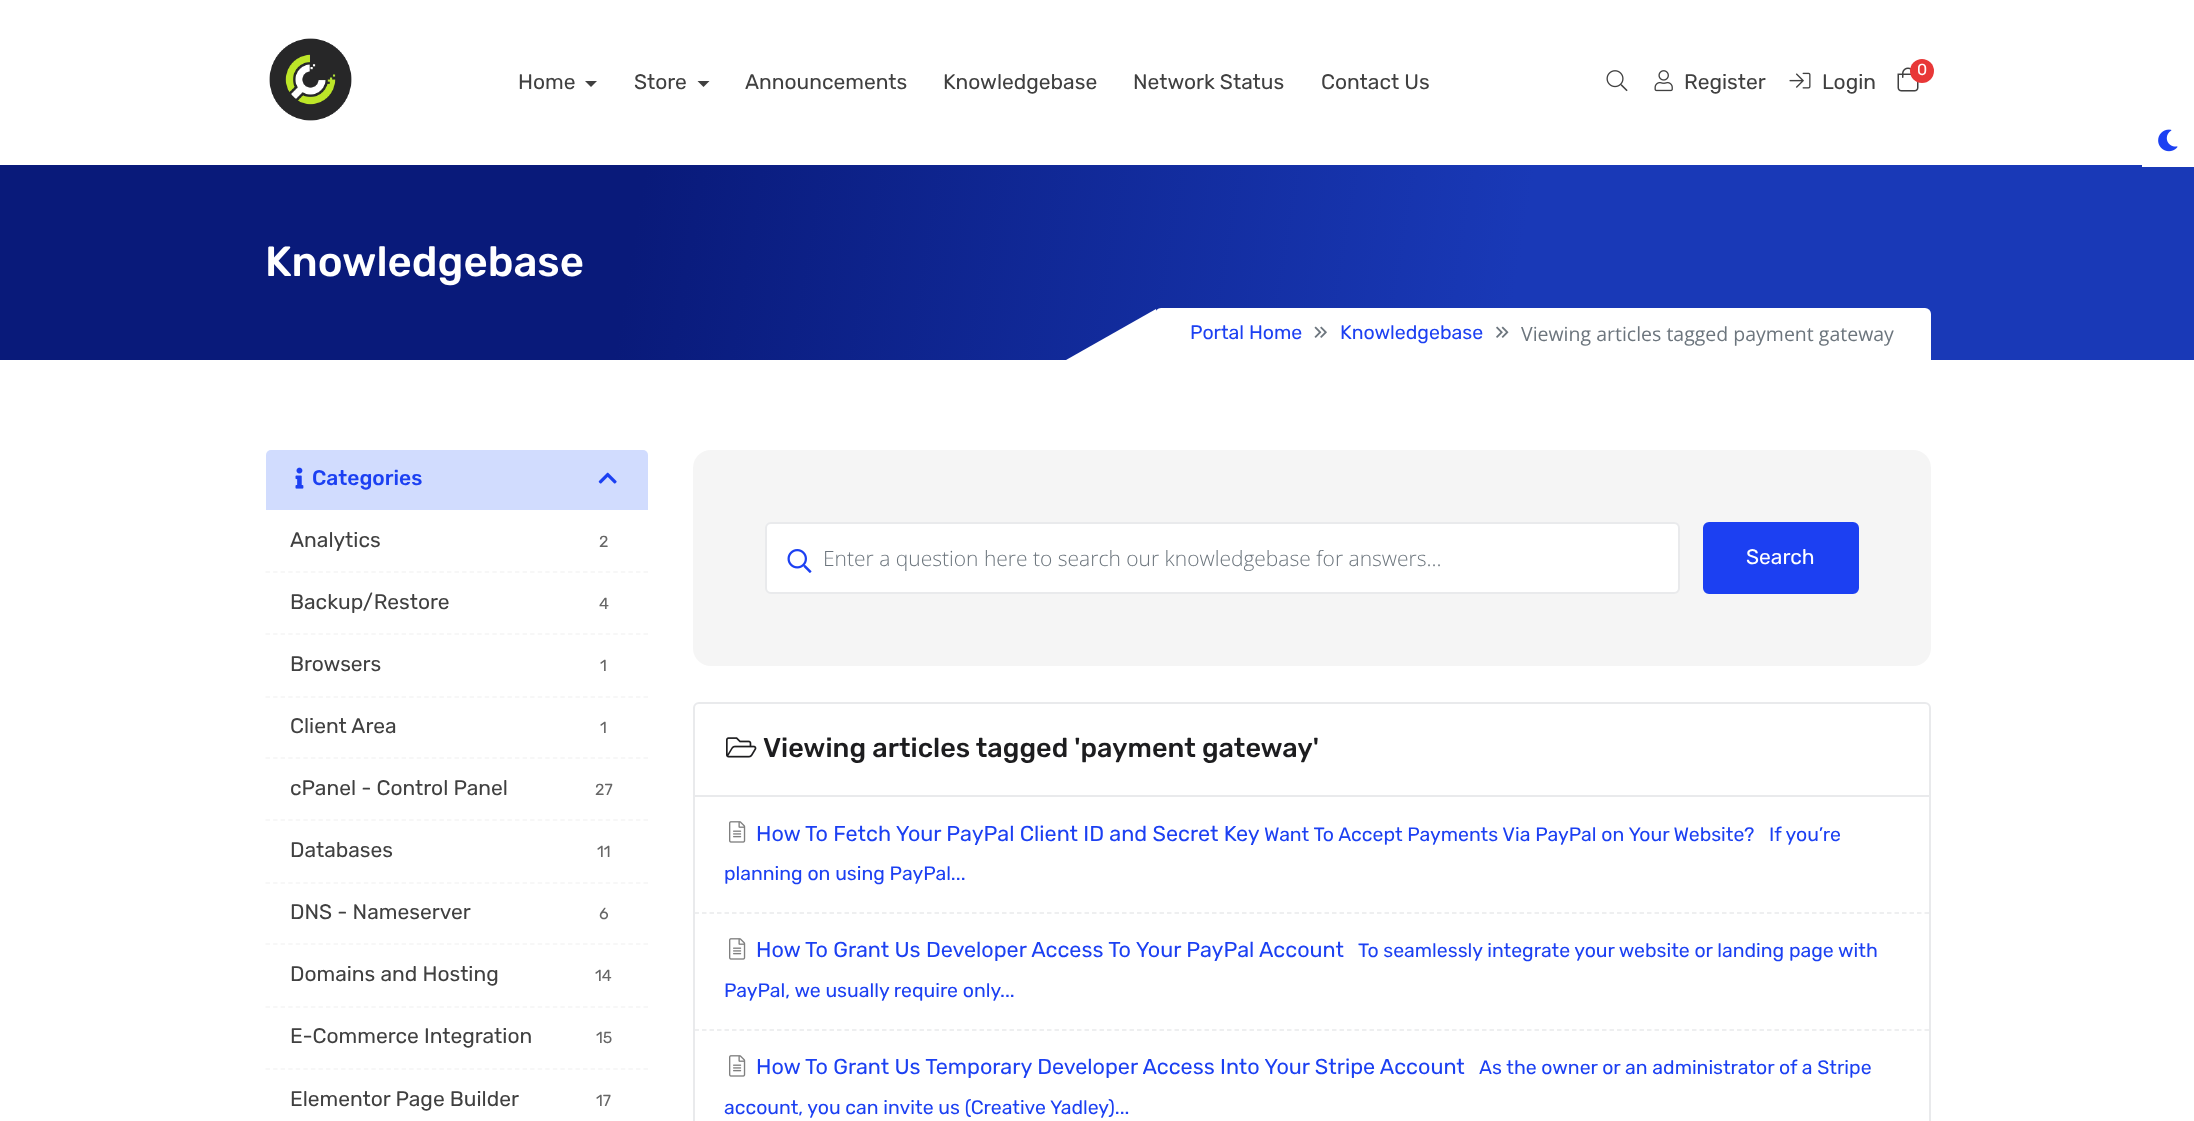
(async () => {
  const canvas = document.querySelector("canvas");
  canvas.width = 2194;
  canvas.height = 1121;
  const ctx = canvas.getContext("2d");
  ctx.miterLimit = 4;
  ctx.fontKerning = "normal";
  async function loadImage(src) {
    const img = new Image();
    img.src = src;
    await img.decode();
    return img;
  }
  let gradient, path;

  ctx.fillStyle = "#ffffff";
  ctx.fillRect(0, 0, 2194, 1121);
  ctx.drawImage(await loadImage("img/1.png"), 269, 38, 83, 83);
  ctx.fillStyle = "#404040";
  path = new Path2D("M585 81H597L591 87Z");
  ctx.fill(path);
  path = new Path2D("M697.5 81H709.5L703.5 87Z");
  ctx.fill(path);
  ctx.drawImage(await loadImage("img/2.png"), 1606, 70, 22, 22);
  ctx.drawImage(await loadImage("img/3.png"), 1654, 70, 19, 22);
  ctx.drawImage(await loadImage("img/4.png"), 1789, 72, 22, 17);
  ctx.drawImage(await loadImage("img/5.png"), 1897, 67, 22, 25);
  ctx.fillStyle = "#e83737";
  ctx.beginPath();
  ctx.arc(1922, 71, 12, 0, Math.PI * 2);
  ctx.fill();
  gradient = ctx.createLinearGradient(2181, 440, 13, 85);
  gradient.addColorStop(0.31, "#1939b7");
  gradient.addColorStop(0.71, "#091a7a");
  ctx.fillStyle = gradient;
  ctx.fillRect(0, 165, 2194, 195);
  ctx.fillStyle = "#ffffff";
  ctx.fillRect(2142, 165, 52, 2);
  ctx.drawImage(await loadImage("img/6.png"), 2158, 129, 20, 23);
  ctx.beginPath();
  ctx.roundRect(1155, 308, 776, 52, [6, 6, 0, 0]);
  ctx.fill();
  path = new Path2D("M1156 360H1066L1156 309Z");
  ctx.fill(path);
  ctx.drawImage(await loadImage("img/7.png"), 1314, 326, 13, 12);
  ctx.drawImage(await loadImage("img/8.png"), 1496, 326, 13, 12);
  ctx.fillStyle = "#d1dcfe";
  ctx.beginPath();
  ctx.roundRect(266, 450, 382, 60, [5, 5, 0, 0]);
  ctx.fill();
  ctx.drawImage(await loadImage("img/9.png"), 295, 467, 9, 22);
  ctx.drawImage(await loadImage("img/10.png"), 598, 472, 19, 12);
  path = new Path2D("M265.5 572H648");
  ctx.strokeStyle = "#f5f5f5";
  ctx.lineWidth = 1.5;
  ctx.setLineDash([4.5, 3.06]);
  ctx.stroke(path);
  path = new Path2D("M265.5 634H648");
  ctx.stroke(path);
  path = new Path2D("M265.5 697H648");
  ctx.stroke(path);
  path = new Path2D("M265.5 758H648");
  ctx.stroke(path);
  path = new Path2D("M265.5 820H648");
  ctx.stroke(path);
  path = new Path2D("M265.5 883H648");
  ctx.stroke(path);
  path = new Path2D("M265.5 944H648");
  ctx.stroke(path);
  path = new Path2D("M265.5 1007H648");
  ctx.stroke(path);
  path = new Path2D("M265.5 1069H648");
  ctx.stroke(path);
  ctx.fillStyle = "#f5f5f5";
  ctx.beginPath();
  ctx.roundRect(693, 450, 1238, 216, 18);
  ctx.fill();
  ctx.fillStyle = "#ffffff";
  ctx.beginPath();
  ctx.roundRect(766, 523, 913, 70, 5);
  ctx.fill();
  ctx.strokeStyle = "#e9eaec";
  ctx.lineWidth = 2;
  ctx.setLineDash([]);
  ctx.stroke();
  ctx.drawImage(await loadImage("img/11.png"), 787, 549, 25, 24);
  ctx.fillStyle = "#1c40f2";
  ctx.beginPath();
  ctx.roundRect(1704, 523, 154, 70, 5);
  ctx.fill();
  ctx.strokeStyle = "#1c40f2";
  ctx.stroke();
  ctx.beginPath();
  ctx.roundRect(694, 703, 1236, 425, 5);
  ctx.strokeStyle = "#e9eaec";
  ctx.stroke();
  ctx.drawImage(await loadImage("img/12.png"), 726, 737, 31, 21);
  ctx.fillStyle = "#e9eaec";
  ctx.fillRect(695, 795, 1234, 2);
  path = new Path2D("M694.5 913H1929");
  ctx.lineWidth = 1.5;
  ctx.setLineDash([4.5, 3]);
  ctx.stroke(path);
  ctx.drawImage(await loadImage("img/13.png"), 729, 821, 17, 22);
  path = new Path2D("M694.5 1030H1929");
  ctx.stroke(path);
  ctx.drawImage(await loadImage("img/13.png"), 729, 938, 17, 22);
  ctx.drawImage(await loadImage("img/13.png"), 729, 1055, 17, 22);
  ctx.font = "21px Rubik";
  ctx.fillStyle = "#404040";
  for (const [text, x, y] of [
    ["Home", 518, 89],
    ["Store", 634, 89],
    ["Announcements", 745, 89],
    ["Knowledgebase", 943, 89],
    ["Network Status", 1133, 89],
    ["Contact Us", 1321, 89],
    ["Register", 1684, 89],
    ["Login", 1822, 89],
  ]) {
    ctx.fillText(text, x, y);
  }
  ctx.font = "16px Rubik";
  ctx.fillStyle = "#ffffff";
  ctx.fillText("0", 1917, 75);
  ctx.font = "500 42px Rubik";
  ctx.fillText("Knowledgebase", 265, 276);
  ctx.font = "19.5px Rubik";
  ctx.fillStyle = "#1c40f2";
  ctx.fillText("Portal Home", 1190, 339);
  ctx.fillText("Knowledgebase", 1340, 339);
  ctx.font = "19.5px Open Sans";
  ctx.fillStyle = "#6c757d";
  ctx.fillText("Viewing articles tagged payment gateway", 1521, 341);
  ctx.font = "500 21px Rubik";
  ctx.fillStyle = "#1c40f2";
  ctx.fillText("Categories", 312, 485);
  ctx.font = "21px Rubik";
  ctx.fillStyle = "#404040";
  ctx.fillText("Analytics", 290, 547);
  ctx.font = "16px Rubik";
  ctx.fillStyle = "#666666";
  ctx.fillText("2", 599, 547);
  ctx.font = "21px Rubik";
  ctx.fillStyle = "#404040";
  ctx.fillText("Backup/Restore", 290, 609);
  ctx.font = "16px Rubik";
  ctx.fillStyle = "#666666";
  ctx.fillText("4", 599, 609);
  ctx.font = "21px Rubik";
  ctx.fillStyle = "#404040";
  ctx.fillText("Browsers", 290, 671);
  ctx.font = "16px Rubik";
  ctx.fillStyle = "#666666";
  ctx.fillText("1", 600, 671);
  ctx.font = "21px Rubik";
  ctx.fillStyle = "#404040";
  ctx.fillText("Client Area", 290, 733);
  ctx.font = "16px Rubik";
  ctx.fillStyle = "#666666";
  ctx.fillText("1", 600, 733);
  ctx.font = "21px Rubik";
  ctx.fillStyle = "#404040";
  ctx.fillText("cPanel - Control Panel", 290, 795);
  ctx.font = "16px Rubik";
  ctx.fillStyle = "#666666";
  ctx.fillText("27", 595, 795);
  ctx.font = "21px Rubik";
  ctx.fillStyle = "#404040";
  ctx.fillText("Databases", 290, 857);
  ctx.font = "16px Rubik";
  ctx.fillStyle = "#666666";
  ctx.fillText("11", 597, 857);
  ctx.font = "21px Rubik";
  ctx.fillStyle = "#404040";
  ctx.fillText("DNS - Nameserver", 290, 919);
  ctx.font = "16px Rubik";
  ctx.fillStyle = "#666666";
  ctx.fillText("6", 599, 919);
  ctx.font = "21px Rubik";
  ctx.fillStyle = "#404040";
  ctx.fillText("Domains and Hosting", 290, 981);
  ctx.font = "16px Rubik";
  ctx.fillStyle = "#666666";
  ctx.fillText("14", 595, 981);
  ctx.font = "21px Rubik";
  ctx.fillStyle = "#404040";
  ctx.fillText("E-Commerce Integration", 290, 1043);
  ctx.font = "16px Rubik";
  ctx.fillStyle = "#666666";
  ctx.fillText("15", 596, 1043);
  ctx.font = "21px Rubik";
  ctx.fillStyle = "#404040";
  ctx.fillText("Elementor Page Builder", 290, 1106);
  ctx.font = "16px Rubik";
  ctx.fillStyle = "#666666";
  ctx.fillText("17", 596, 1106);
  ctx.font = "300 21px Open Sans";
  ctx.fillStyle = "#6c757d";
  ctx.fillText("Enter a question here to search our knowledgebase for answers...", 823, 566);
  ctx.font = "21px Rubik";
  ctx.fillStyle = "#ffffff";
  ctx.fillText("Search", 1746, 564);
  ctx.font = "500 27px Rubik";
  ctx.fillStyle = "#1d1d1f";
  ctx.fillText("Viewing articles tagged 'payment gateway'", 763, 757);
  ctx.font = "21.6px Rubik";
  ctx.fillStyle = "#1c40f2";
  ctx.fillText("How To Fetch Your PayPal Client ID and Secret Key", 756, 841);
  ctx.font = "19.45px Rubik";
  for (const [text, x, y] of [
    ["Want To Accept Payments Via PayPal on Your Website?", 1264, 841],
    ["If you’re", 1769, 841],
    ["planning on using PayPal...", 724, 880],
  ]) {
    ctx.fillText(text, x, y);
  }
  ctx.font = "21.6px Rubik";
  ctx.fillText("How To Grant Us Developer Access To Your PayPal Account", 756, 957);
  ctx.font = "19.45px Rubik";
  ctx.fillText("To seamlessly integrate your website or landing page with", 1358, 957);
  ctx.fillText("PayPal, we usually require only...", 724, 997);
  ctx.font = "21.6px Rubik";
  ctx.fillText("How To Grant Us Temporary Developer Access Into Your Stripe Account", 756, 1074);
  ctx.font = "19.45px Rubik";
  ctx.fillText("As the owner or an administrator of a Stripe", 1479, 1074);
  ctx.fillText("account, you can invite us (Creative Yadley)...", 724, 1114);
})();
